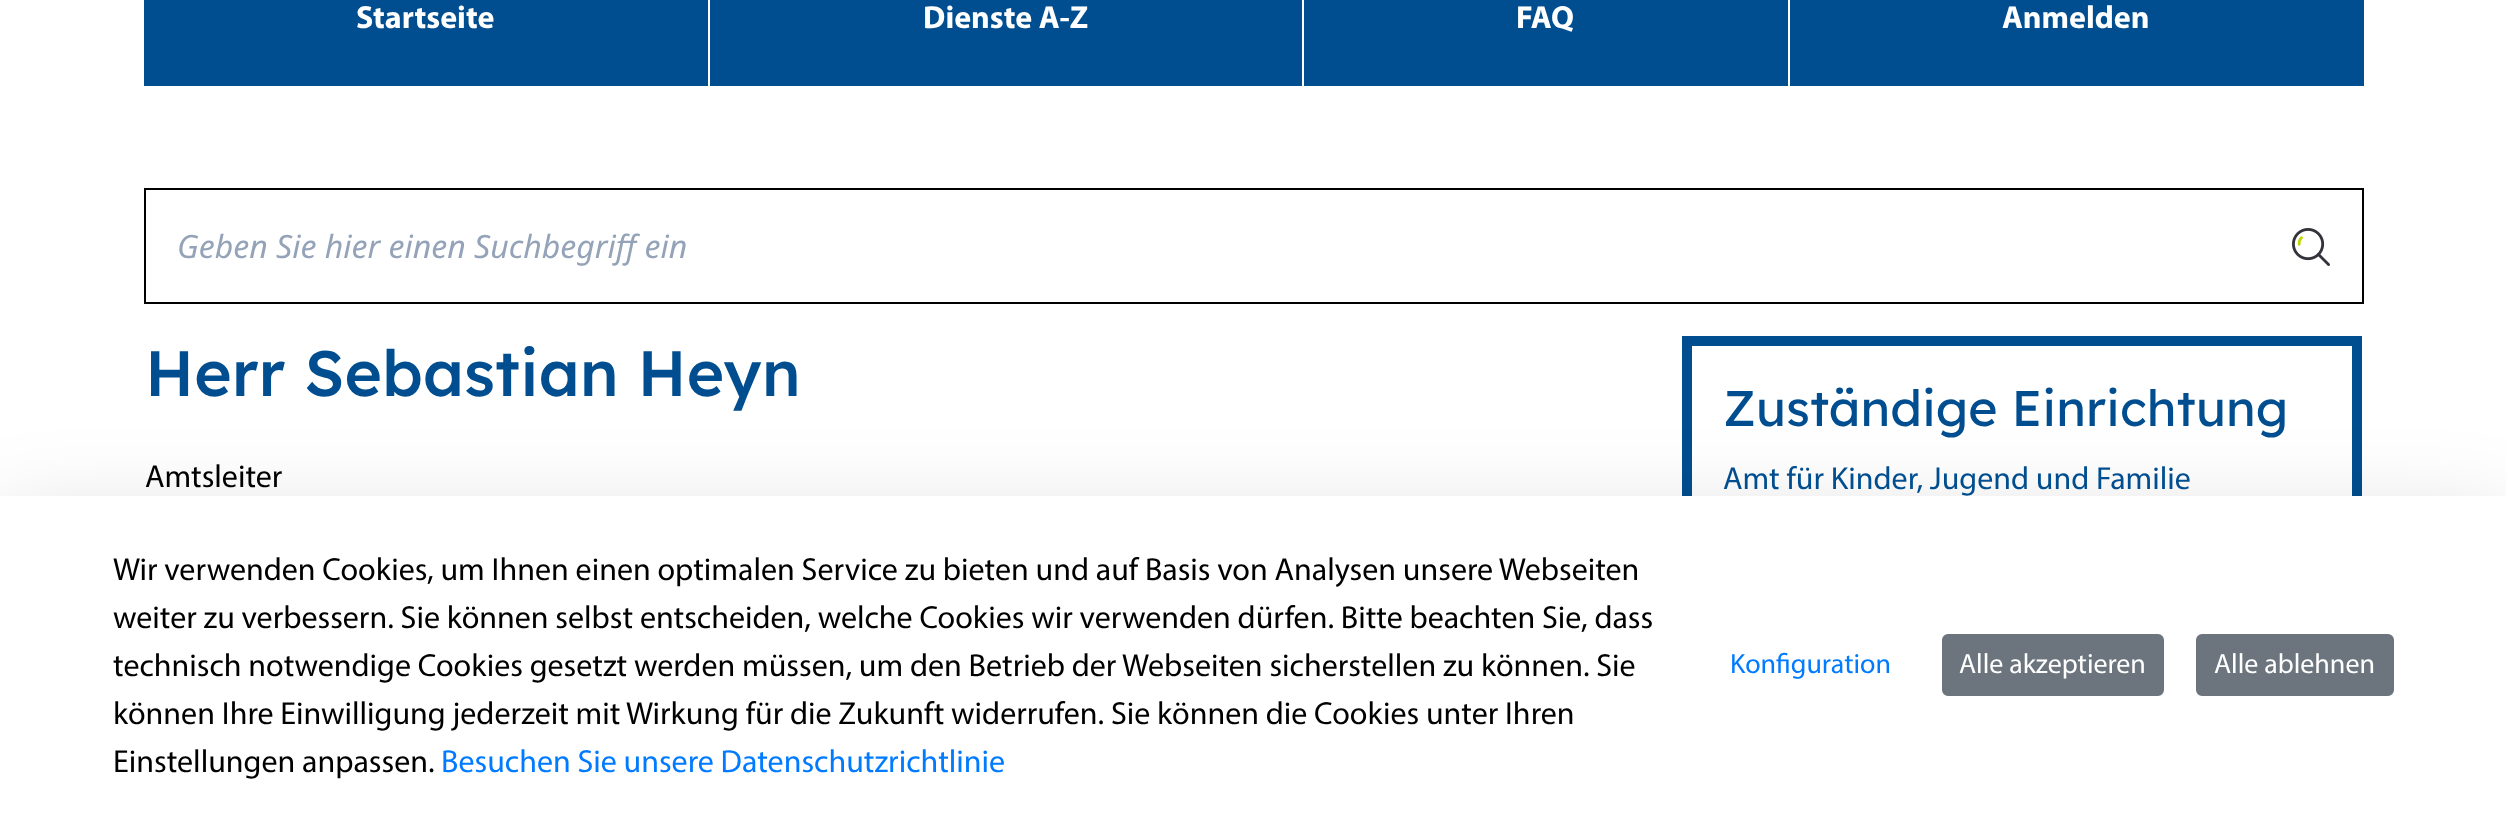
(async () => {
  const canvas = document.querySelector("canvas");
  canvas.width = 2506;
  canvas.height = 831;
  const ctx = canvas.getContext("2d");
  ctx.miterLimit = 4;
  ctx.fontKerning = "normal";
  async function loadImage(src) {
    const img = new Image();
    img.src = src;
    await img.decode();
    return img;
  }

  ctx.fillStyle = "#ffffff";
  ctx.fillRect(0, 0, 2506, 831);
  for (const [x, y, w, h, color] of [
    [144, 0, 2220, 86, "#004e8f"],
    [708, 0, 2, 86, "#ffffff"],
    [1302, 0, 2, 86, "#ffffff"],
    [1788, 0, 2, 86, "#ffffff"],
  ]) {
    ctx.fillStyle = color;
    ctx.fillRect(x, y, w, h);
  }
  ctx.strokeStyle = "#000000";
  ctx.lineWidth = 2;
  ctx.strokeRect(145, 189, 2218, 114);
  ctx.drawImage(await loadImage("img/1.png"), 2292, 228, 38, 38);
  ctx.strokeStyle = "#004e8f";
  ctx.lineWidth = 10;
  ctx.strokeRect(1687, 341, 670, 198);
  ctx.fillStyle = "rgba(0, 0, 0, 0.18)";
  ctx.filter = "blur(48px)";
  ctx.beginPath();
  ctx.rect(0, 528, 2506, 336);
  ctx.fill();
  ctx.filter = "none";
  ctx.fillStyle = "#ffffff";
  ctx.fillRect(0, 496, 2506, 335);
  ctx.fillStyle = "#6c757d";
  ctx.beginPath();
  ctx.roundRect(1943, 635, 220, 60, 5);
  ctx.fill();
  ctx.strokeStyle = "#6c757d";
  ctx.lineWidth = 2;
  ctx.stroke();
  ctx.beginPath();
  ctx.roundRect(2197, 635, 196, 60, 5);
  ctx.fill();
  ctx.stroke();
  ctx.font = "bold 32px Myriad";
  ctx.fillStyle = "#ffffff";
  for (const [text, x, y] of [
    ["Startseite", 356, 28],
    ["Dienste A-Z", 923, 28],
    ["FAQ", 1516, 28],
    ["Anmelden", 2002, 28],
  ]) {
    ctx.fillText(text, x, y);
  }
  ctx.font = "italic 32px Noto Sans";
  ctx.fillStyle = "#94a3b8";
  ctx.fillText("Geben Sie hier einen Suchbegriff ein", 177, 258);
  ctx.font = "500 64px Lexend";
  ctx.fillStyle = "#004e8f";
  ctx.fillText("Herr Sebastian Heyn", 145, 396);
  ctx.font = "32px Myriad";
  ctx.fillStyle = "#000000";
  ctx.fillText("Amtsleiter", 145, 487);
  ctx.font = "50px Lexend";
  ctx.fillStyle = "#004e8f";
  ctx.fillText("Zuständige Einrichtung", 1723, 426);
  ctx.font = "32px Myriad";
  ctx.fillText("Amt für Kinder, Jugend und Familie", 1723, 489);
  ctx.fillStyle = "#000000";
  for (const [text, x, y] of [
    ["Wir verwenden Cookies, um Ihnen einen optimalen Service zu bieten und auf Basis von Analysen unsere Webseiten", 113, 580],
    ["weiter zu verbessern. Sie können selbst entscheiden, welche Cookies wir verwenden dürfen. Bitte beachten Sie, dass", 113, 628],
    ["technisch notwendige Cookies gesetzt werden müssen, um den Betrieb der Webseiten sicherstellen zu können. Sie", 113, 676],
    ["können Ihre Einwilligung jederzeit mit Wirkung für die Zukunft widerrufen. Sie können die Cookies unter Ihren", 113, 724],
    ["Einstellungen anpassen.", 113, 772],
  ]) {
    ctx.fillText(text, x, y);
  }
  ctx.fillStyle = "#007bff";
  ctx.fillText("Besuchen Sie unsere Datenschutzrichtlinie", 441, 772);
  ctx.font = "28px Myriad";
  ctx.fillText("Konfiguration", 1730, 673);
  ctx.fillStyle = "#ffffff";
  ctx.fillText("Alle akzeptieren", 1959, 673);
  ctx.fillText("Alle ablehnen", 2214, 673);
})();
